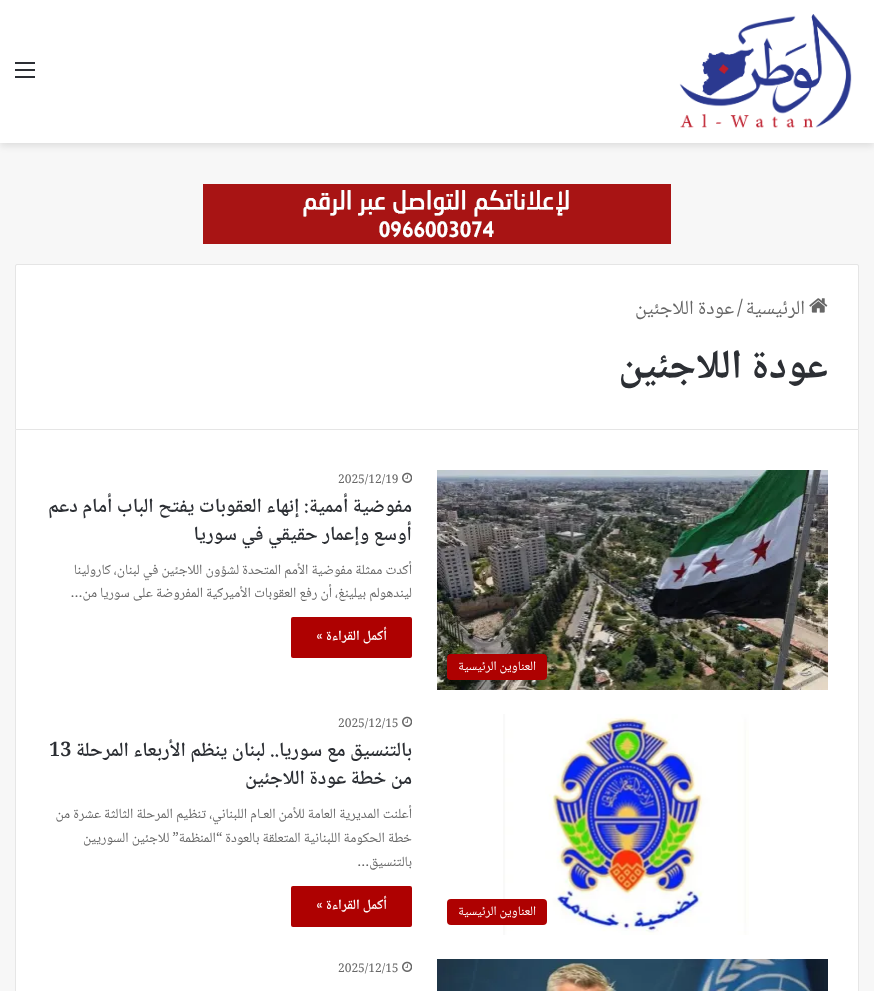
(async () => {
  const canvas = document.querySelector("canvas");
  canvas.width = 874;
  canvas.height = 991;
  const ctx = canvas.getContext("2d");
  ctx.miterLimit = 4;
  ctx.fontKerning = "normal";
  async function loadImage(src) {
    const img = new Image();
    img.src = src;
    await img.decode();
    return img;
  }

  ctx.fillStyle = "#f7f7f7";
  ctx.fillRect(0, 0, 874, 991);
  ctx.fillStyle = "rgba(0, 0, 0, 0.1)";
  ctx.filter = "blur(3.5px)";
  ctx.beginPath();
  ctx.rect(0, 3, 874, 143);
  ctx.fill();
  ctx.filter = "none";
  ctx.fillStyle = "#ffffff";
  ctx.fillRect(0, 0, 874, 143);
  ctx.drawImage(await loadImage("img/1.png"), 679, 14, 173, 114);
  for (const [x, y, w, h, color] of [
    [15, 69, 20, 2, "#2c2f34"],
    [15, 62, 20, 2, "#2c2f34"],
    [15, 76, 20, 2, "#2c2f34"],
  ]) {
    ctx.fillStyle = color;
    ctx.fillRect(x, y, w, h);
  }
  ctx.drawImage(await loadImage("img/2.png"), 203, 184, 468, 60);
  ctx.fillStyle = "#ffffff";
  ctx.beginPath();
  ctx.roundRect(15.5, 264.5, 843, 165, [1.5, 1.5, 0, 0]);
  ctx.fill();
  ctx.strokeStyle = "#e5e5e5";
  ctx.stroke();
  ctx.drawImage(await loadImage("img/3.png"), 809, 298, 19, 15);
  for (const [x, y, w, h, color] of [
    [16, 430, 842, 561, "#ffffff"],
    [858, 430, 1, 561, "#e6e6e6"],
    [15, 430, 1, 561, "#e6e6e6"],
  ]) {
    ctx.fillStyle = color;
    ctx.fillRect(x, y, w, h);
  }
  ctx.drawImage(await loadImage("img/4.png"), 402, 472, 10, 11);
  ctx.fillStyle = "#ae0101";
  ctx.beginPath();
  ctx.roundRect(291, 617, 121, 41, 2);
  ctx.fill();
  ctx.drawImage(await loadImage("img/5.png"), 437, 470, 391, 220);
  ctx.beginPath();
  ctx.roundRect(447, 654, 100, 26, 4);
  ctx.fill();
  ctx.drawImage(await loadImage("img/6.png"), 503, 714, 246, 221);
  ctx.beginPath();
  ctx.roundRect(447, 899, 100, 26, 4);
  ctx.fill();
  ctx.drawImage(await loadImage("img/4.png"), 402, 716, 10, 11);
  ctx.beginPath();
  ctx.roundRect(291, 886, 121, 41, 2);
  ctx.fill();
  ctx.drawImage(await loadImage("img/7.png"), 437, 959, 391, 32);
  ctx.drawImage(await loadImage("img/4.png"), 402, 961, 10, 11);
  ctx.direction = "rtl";
  ctx.font = "20px Noto Naskh Arabic";
  ctx.fillStyle = "#666666";
  ctx.fillText("الرئيسية", 805, 314);
  ctx.direction = "ltr";
  ctx.fillText("/", 737, 314);
  ctx.direction = "rtl";
  ctx.fillText("عودة اللاجئين", 734, 314);
  ctx.font = "bold 41px Noto Naskh Arabic";
  ctx.fillStyle = "#2c2f34";
  ctx.fillText("عودة اللاجئين", 828, 378);
  ctx.direction = "ltr";
  ctx.font = "12px Noto Naskh Arabic";
  ctx.fillStyle = "#666666";
  ctx.fillText("2025/12/19", 338, 483);
  ctx.direction = "rtl";
  ctx.font = "600 20px Noto Naskh Arabic";
  ctx.fillStyle = "#2c2f34";
  ctx.fillText("مفوضية أممية: إنهاء العقوبات يفتح الباب أمام دعم", 412, 512);
  ctx.fillText("أوسع وإعمار حقيقي في سوريا", 412, 540);
  ctx.font = "14px Noto Naskh Arabic";
  ctx.fillStyle = "#666666";
  ctx.fillText("أكدت ممثلة مفوضية الأمم المتحدة لشؤون اللاجئين في لبنان، كارولينا", 412, 574);
  ctx.fillText("ليندهولم بيلينغ، أن رفع العقوبات الأميركية المفروضة على سوريا من…", 412, 597);
  ctx.font = "600 14px Noto Naskh Arabic";
  ctx.fillStyle = "#ffffff";
  ctx.fillText("أكمل القراءة »", 387, 640);
  ctx.font = "13px Noto Naskh Arabic";
  ctx.fillText("العناوين الرئيسية", 536, 670);
  ctx.fillText("العناوين الرئيسية", 536, 915);
  ctx.direction = "ltr";
  ctx.font = "12px Noto Naskh Arabic";
  ctx.fillStyle = "#666666";
  ctx.fillText("2025/12/15", 338, 727);
  ctx.direction = "rtl";
  ctx.font = "600 20px Noto Naskh Arabic";
  ctx.fillStyle = "#2c2f34";
  ctx.fillText("بالتنسيق مع سوريا.. لبنان ينظم الأربعاء المرحلة", 412, 756);
  ctx.direction = "ltr";
  ctx.fillText("13", 49, 756);
  ctx.direction = "rtl";
  ctx.fillText("من خطة عودة اللاجئين", 412, 784);
  ctx.font = "14px Noto Naskh Arabic";
  ctx.fillStyle = "#666666";
  for (const [text, x, y] of [
    ["أعلنت المديرية العامة للأمن العـام اللبناني، تنظيم المرحلة الثالثة عشرة من", 412, 818],
    ["خطة الحكومة اللبنانية المتعلقة بالعودة “المنظمة” للاجئين السوريين", 412, 842],
    ["بالتنسيق…", 412, 866],
  ]) {
    ctx.fillText(text, x, y);
  }
  ctx.font = "600 14px Noto Naskh Arabic";
  ctx.fillStyle = "#ffffff";
  ctx.fillText("أكمل القراءة »", 387, 909);
  ctx.direction = "ltr";
  ctx.font = "12px Noto Naskh Arabic";
  ctx.fillStyle = "#666666";
  ctx.fillText("2025/12/15", 338, 972);
})();
